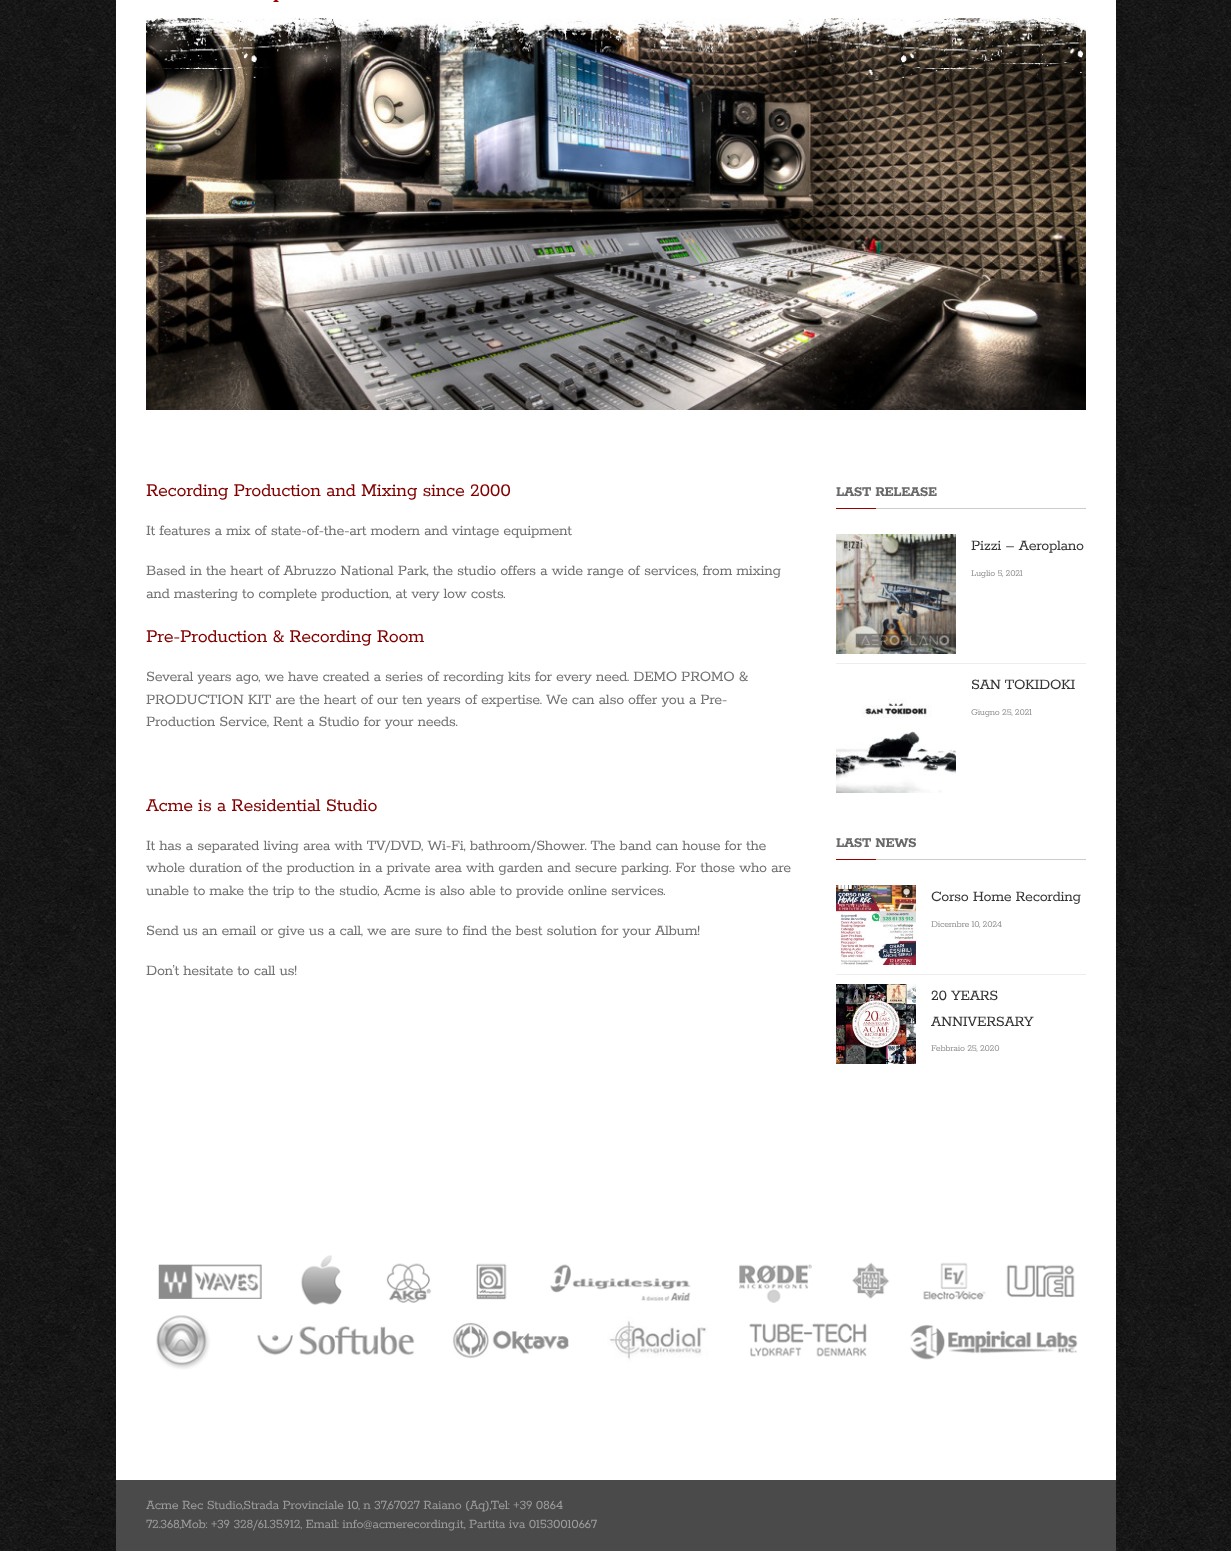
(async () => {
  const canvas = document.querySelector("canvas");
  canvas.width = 1231;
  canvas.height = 1551;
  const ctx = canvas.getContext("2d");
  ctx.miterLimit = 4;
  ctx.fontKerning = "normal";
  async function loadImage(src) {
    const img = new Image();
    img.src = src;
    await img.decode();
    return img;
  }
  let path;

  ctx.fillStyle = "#ffffff";
  ctx.fillRect(0, 0, 1231, 1551);
  ctx.drawImage(await loadImage("img/1.png"), 0, 0, 1231, 1551);
  ctx.fillRect(116, 0, 1000, 1480);
  ctx.fillStyle = "#990000";
  path = new Path2D("M279 2H273L276-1Z");
  ctx.fill(path);
  ctx.drawImage(await loadImage("img/2.png"), 146, 18, 940, 392);
  for (const [x, y, w, h, color] of [
    [876, 508, 210, 1, "#cccccc"],
    [836, 508, 40, 1, "#990000"],
    [836, 663, 250, 1, "#ededed"],
  ]) {
    ctx.fillStyle = color;
    ctx.fillRect(x, y, w, h);
  }
  ctx.drawImage(await loadImage("img/3.png"), 836, 534, 120, 120);
  ctx.drawImage(await loadImage("img/4.png"), 836, 699, 120, 94);
  for (const [x, y, w, h, color] of [
    [876, 859, 210, 1, "#cccccc"],
    [836, 859, 40, 1, "#990000"],
    [836, 974, 250, 1, "#ededed"],
  ]) {
    ctx.fillStyle = color;
    ctx.fillRect(x, y, w, h);
  }
  ctx.drawImage(await loadImage("img/5.png"), 836, 885, 80, 80);
  ctx.drawImage(await loadImage("img/6.png"), 836, 984, 80, 80);
  ctx.drawImage(await loadImage("img/7.png"), 156, 1255, 922, 115);
  ctx.fillStyle = "#4a4a4a";
  ctx.fillRect(116, 1480, 1000, 71);
  ctx.letterSpacing = "-0.32px";
  ctx.font = "20px Rokkitt";
  ctx.fillStyle = "#800000";
  ctx.fillText("Recording Production and Mixing since 2000", 146, 496);
  ctx.font = "16px Rokkitt";
  ctx.fillStyle = "#727272";
  for (const [text, x, y] of [
    ["It features a mix of state-of-the-art modern and vintage equipment", 146, 535],
    ["Based in the heart of Abruzzo National Park, the studio offers a wide range of services, from mixing", 146, 575],
    ["and mastering to complete production, at very low costs.", 146, 598],
  ]) {
    ctx.fillText(text, x, y);
  }
  ctx.font = "20px Rokkitt";
  ctx.fillStyle = "#800000";
  ctx.fillText("Pre-Production & Recording Room", 146, 642);
  ctx.font = "16px Rokkitt";
  ctx.fillStyle = "#727272";
  for (const [text, x, y] of [
    ["Several years ago, we have created a series of recording kits for every need. DEMO PROMO &", 146, 681],
    ["PRODUCTION KIT are the heart of our ten years of expertise. We can also offer you a Pre-", 146, 704],
    ["Production Service, Rent a Studio for your needs.", 146, 726],
  ]) {
    ctx.fillText(text, x, y);
  }
  ctx.font = "20px Rokkitt";
  ctx.fillStyle = "#800000";
  ctx.fillText("Acme is a Residential Studio", 146, 811);
  ctx.font = "16px Rokkitt";
  ctx.fillStyle = "#727272";
  for (const [text, x, y] of [
    ["It has a separated living area with TV/DVD, Wi-Fi, bathroom/Shower. The band can house for the", 146, 850],
    ["whole duration of the production in a private area with garden and secure parking. For those who are", 146, 872],
    ["unable to make the trip to the studio, Acme is also able to provide online services.", 146, 895],
    ["Send us an email or give us a call, we are sure to find the best solution for your Album!", 146, 935],
    ["Don’t hesitate to call us!", 146, 975],
  ]) {
    ctx.fillText(text, x, y);
  }
  ctx.font = "bold 15px Rokkitt";
  ctx.fillStyle = "#696969";
  ctx.fillText("LAST RELEASE", 836, 496);
  ctx.font = "16px Rokkitt";
  ctx.fillStyle = "#343434";
  ctx.fillText("Pizzi – Aeroplano", 971, 550);
  ctx.font = "10px Rokkitt";
  ctx.fillStyle = "#949494";
  ctx.fillText("Luglio 5, 2021", 971, 576);
  ctx.font = "16px Rokkitt";
  ctx.fillStyle = "#343434";
  ctx.fillText("SAN TOKIDOKI", 971, 689);
  ctx.font = "10px Rokkitt";
  ctx.fillStyle = "#949494";
  ctx.fillText("Giugno 25, 2021", 971, 715);
  ctx.font = "bold 15px Rokkitt";
  ctx.fillStyle = "#696969";
  ctx.fillText("LAST NEWS", 836, 847);
  ctx.font = "16px Rokkitt";
  ctx.fillStyle = "#343434";
  ctx.fillText("Corso Home Recording", 931, 901);
  ctx.font = "10px Rokkitt";
  ctx.fillStyle = "#949494";
  ctx.fillText("Dicembre 10, 2024", 931, 927);
  ctx.font = "16px Rokkitt";
  ctx.fillStyle = "#343434";
  ctx.fillText("20 YEARS", 931, 1000);
  ctx.fillText("ANNIVERSARY", 931, 1026);
  ctx.font = "10px Rokkitt";
  ctx.fillStyle = "#949494";
  ctx.fillText("Febbraio 25, 2020", 931, 1051);
  ctx.font = "14px Rokkitt";
  ctx.fillStyle = "#9c9c9c";
  ctx.fillText("Acme Rec Studio,Strada Provinciale 10, n 37,67027 Raiano (Aq),Tel: +39 0864", 146, 1509);
  ctx.fillText("72.368,Mob: +39 328/61.35.912, Email: info@acmerecording.it, Partita iva 01530010667", 146, 1528);
})();
